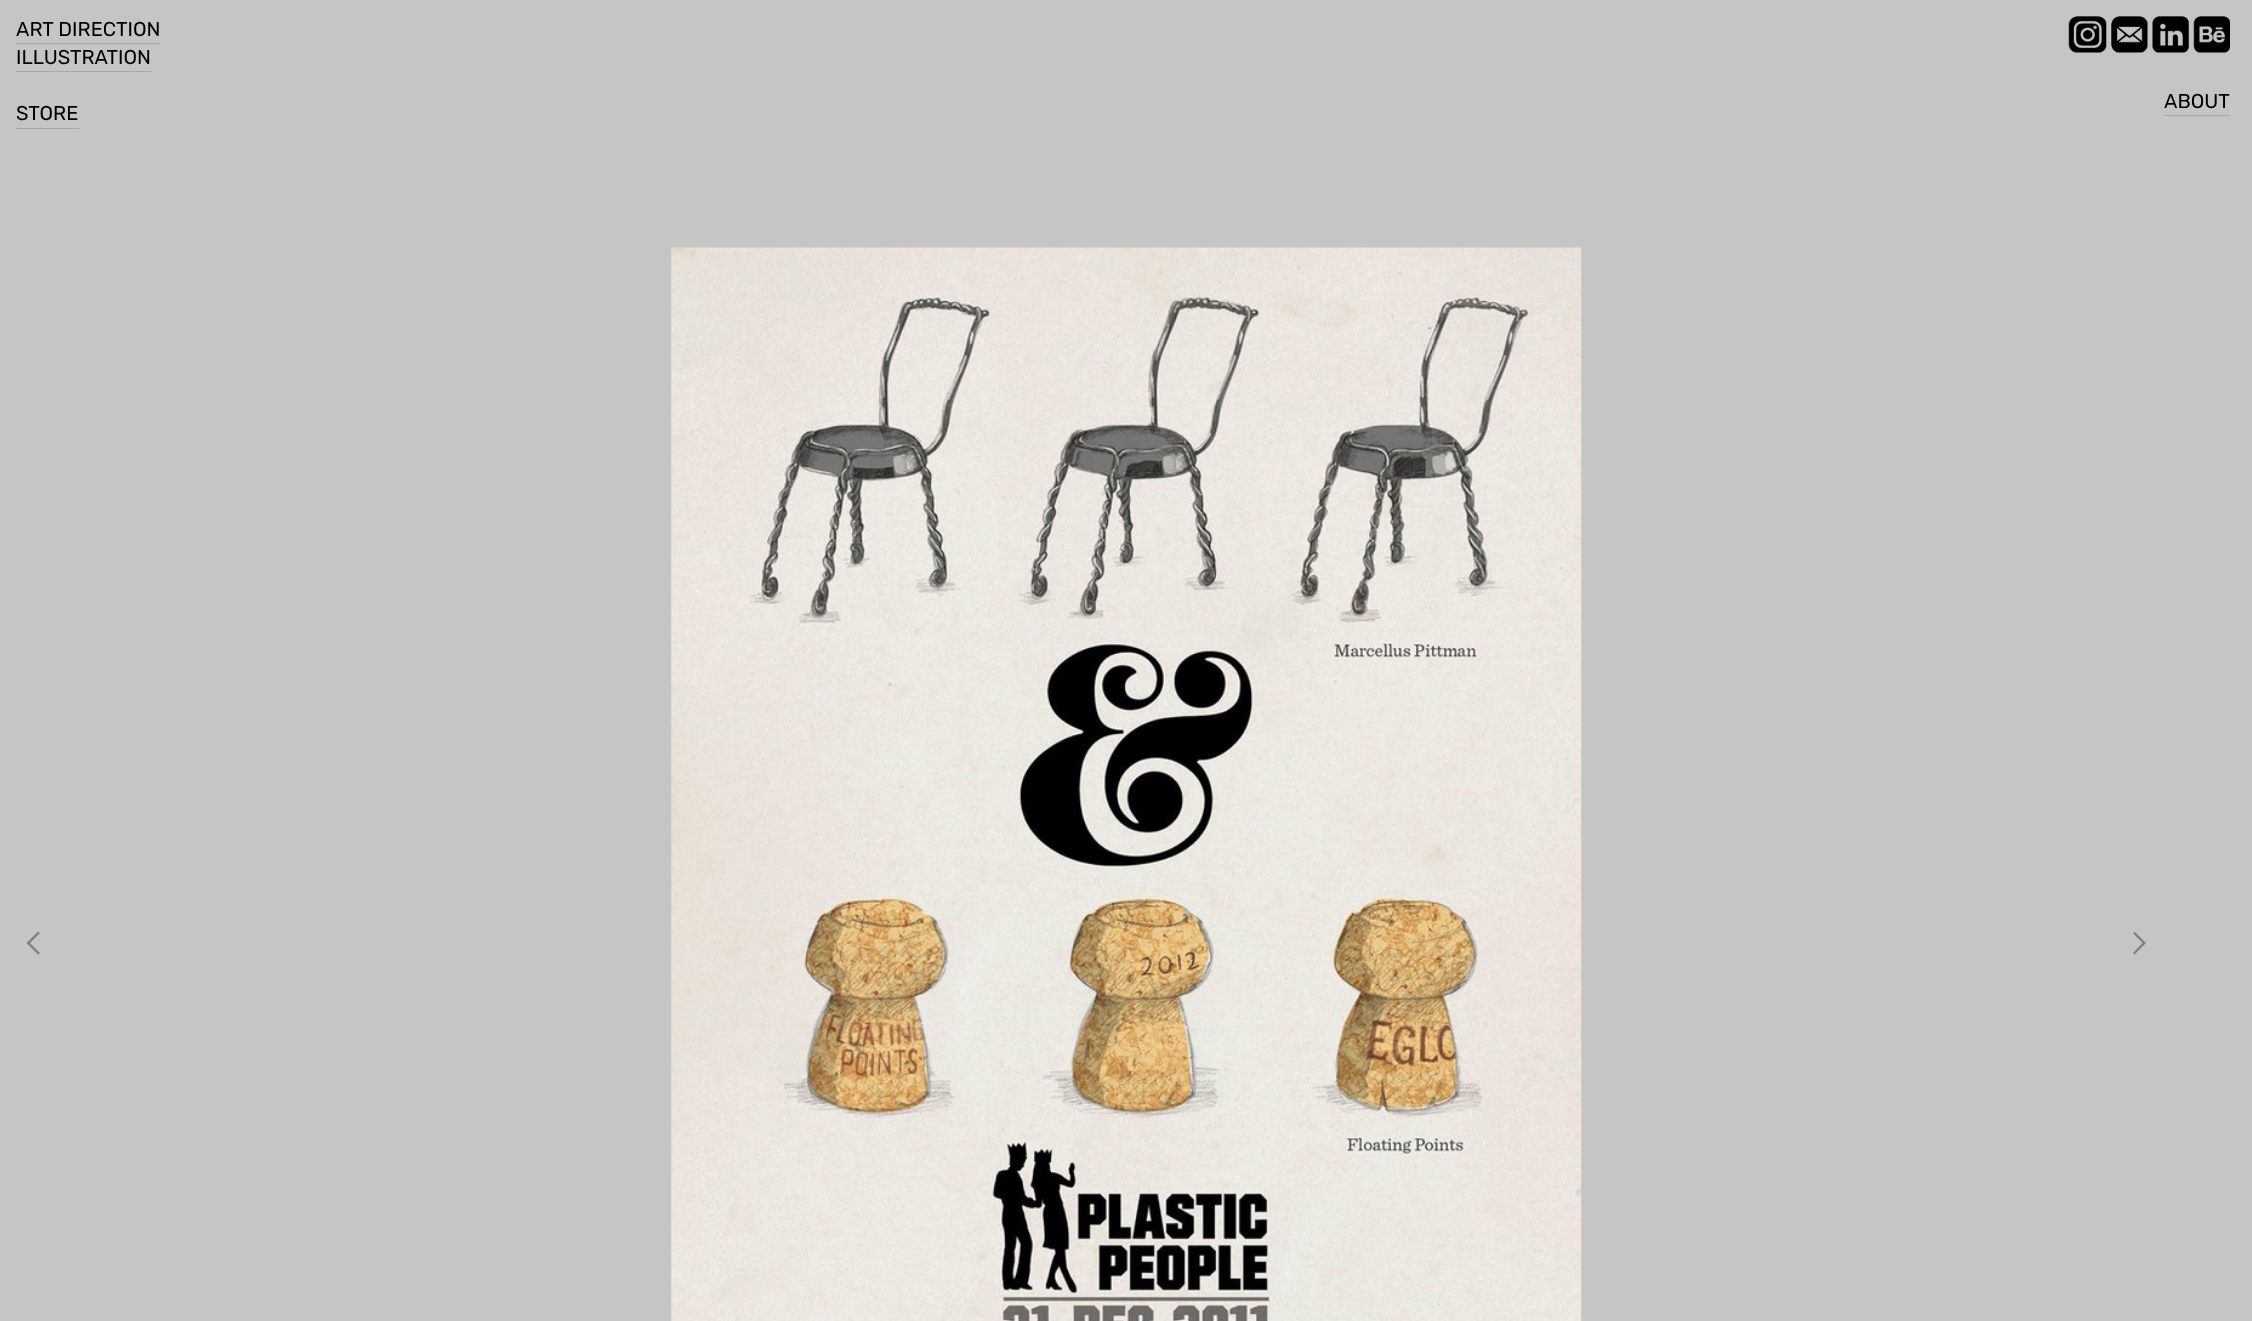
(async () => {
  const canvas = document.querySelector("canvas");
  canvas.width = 2252;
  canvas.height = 1321;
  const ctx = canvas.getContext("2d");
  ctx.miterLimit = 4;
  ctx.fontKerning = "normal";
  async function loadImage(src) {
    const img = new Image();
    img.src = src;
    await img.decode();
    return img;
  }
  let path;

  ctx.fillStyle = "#c5c5c5";
  ctx.fillRect(0, 0, 2252, 1321);
  for (const [x, y, w, h, color] of [
    [16, 43, 144, 1, "#a9a9a9"],
    [16, 71, 135, 1, "#a9a9a9"],
    [16, 128, 63, 1, "#a9a9a9"],
  ]) {
    ctx.fillStyle = color;
    ctx.fillRect(x, y, w, h);
  }
  ctx.drawImage(await loadImage("img/1.png"), 2068, 16, 39, 37);
  ctx.drawImage(await loadImage("img/2.png"), 2111, 16, 37, 37);
  ctx.drawImage(await loadImage("img/3.png"), 2152, 16, 37, 37);
  ctx.drawImage(await loadImage("img/4.png"), 2193, 16, 37, 37);
  ctx.fillRect(2164, 115, 66, 1);
  ctx.drawImage(await loadImage("img/5.png"), 671, 247, 911, 1074);
  ctx.fillStyle = "#828282";
  path = new Path2D("M40 953L30 943L40 933L38 931.5L26.5 943L38 954.5Z");
  ctx.fill(path);
  path = new Path2D("M2146 943L2134.5 931.5L2133 933L2142.5 943L2133 953L2134.5 954.5Z");
  ctx.fill(path);
  ctx.font = "20px Rubik";
  ctx.fillStyle = "#000000";
  for (const [text, x, y] of [
    ["ART DIRECTION", 16, 36],
    ["ILLUSTRATION", 16, 64],
    ["STORE", 16, 120],
    ["ABOUT", 2164, 108],
  ]) {
    ctx.fillText(text, x, y);
  }
})();
